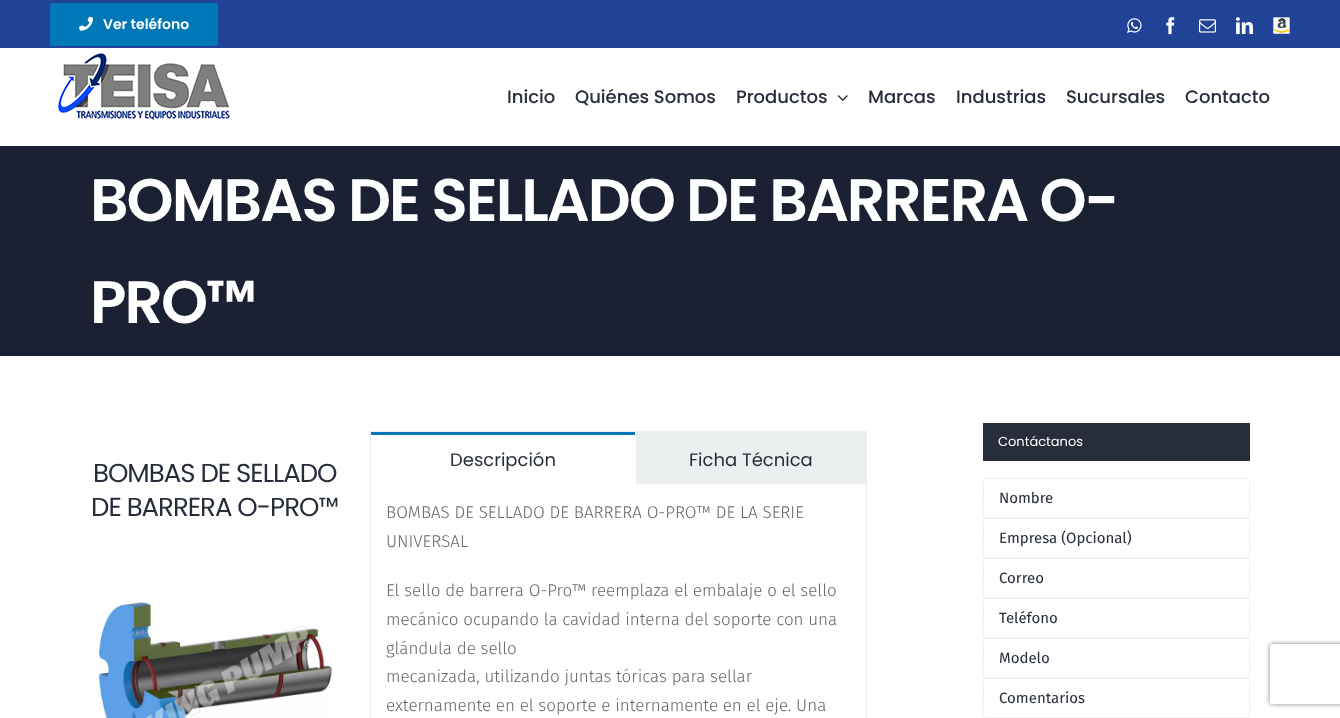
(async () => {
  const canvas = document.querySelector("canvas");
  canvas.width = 1340;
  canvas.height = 718;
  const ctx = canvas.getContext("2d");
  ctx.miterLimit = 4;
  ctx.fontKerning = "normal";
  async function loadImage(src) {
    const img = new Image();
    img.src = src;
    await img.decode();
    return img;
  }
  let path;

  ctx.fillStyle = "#ffffff";
  ctx.fillRect(0, 0, 1340, 718);
  ctx.fillStyle = "#204397";
  ctx.fillRect(0, 0, 1340, 48);
  ctx.fillStyle = "#0077b6";
  ctx.beginPath();
  ctx.roundRect(50, 3, 168, 43, 2);
  ctx.fill();
  ctx.drawImage(await loadImage("img/1.png"), 79, 16, 14, 15);
  ctx.drawImage(await loadImage("img/2.png"), 1127, 18, 15, 15);
  ctx.drawImage(await loadImage("img/3.png"), 1166, 17, 9, 18);
  ctx.drawImage(await loadImage("img/4.png"), 1199, 19, 17, 14);
  ctx.drawImage(await loadImage("img/5.png"), 1236, 17, 17, 17);
  ctx.drawImage(await loadImage("img/6.png"), 1273, 17, 17, 17);
  ctx.drawImage(await loadImage("img/7.png"), 58, 53, 174, 67);
  ctx.drawImage(await loadImage("img/8.png"), 837, 95, 11, 6);
  ctx.fillStyle = "#1b2032";
  ctx.fillRect(0, 146, 1340, 210);
  ctx.drawImage(await loadImage("img/9.png"), 98, 602, 235, 116);
  for (const [x, y, w, h, color] of [
    [370, 431, 497, 1, "#ecefef"],
    [866, 431, 1, 53, "#ecefef"],
    [370, 431, 1, 53, "#ecefef"],
    [371, 432, 264, 3, "#0077b6"],
    [636, 432, 230, 52, "#ecefef"],
    [866, 484, 1, 234, "#ecefef"],
    [370, 484, 1, 234, "#ecefef"],
    [983, 423, 267, 38, "#272d3a"],
  ]) {
    ctx.fillStyle = color;
    ctx.fillRect(x, y, w, h);
  }
  path = new Path2D("M1249 517L1247 517.5H986L984 517");
  ctx.strokeStyle = "#f2f2f2";
  ctx.stroke(path);
  path = new Path2D("M984 517C982.5 515 983.5 501 983.5 498V486.5C983.5 485 982 478.5 986 478.5H1247C1251 478.5 1249.5 485 1249.5 486.5V498C1249.5 501 1250.5 515 1249 517");
  ctx.strokeStyle = "#ecefef";
  ctx.stroke(path);
  path = new Path2D("M1249 557L1247 557.5H986L984 557");
  ctx.strokeStyle = "#f2f2f2";
  ctx.stroke(path);
  path = new Path2D("M984 557C982.5 555 983.5 541 983.5 538V526.5C983.5 525 982 518.5 986 518.5H1247C1251 518.5 1249.5 525 1249.5 526.5V538C1249.5 541 1250.5 555 1249 557");
  ctx.strokeStyle = "#ecefef";
  ctx.stroke(path);
  path = new Path2D("M1249 597L1247 597.5H1160H986L984 597");
  ctx.strokeStyle = "#f2f2f2";
  ctx.stroke(path);
  path = new Path2D("M984 597C982.5 595 983.5 581 983.5 578V566.5C983.5 565 982 558.5 986 558.5H1247C1251 558.5 1249.5 565 1249.5 566.5V578C1249.5 581 1250.5 595 1249 597");
  ctx.strokeStyle = "#ecefef";
  ctx.stroke(path);
  path = new Path2D("M1249 637L1247 637.5H986L984 637");
  ctx.strokeStyle = "#f2f2f2";
  ctx.stroke(path);
  path = new Path2D("M984 637C982.5 635 983.5 621 983.5 618V606.5C983.5 605 982 598.5 986 598.5H1247C1251 598.5 1249.5 605 1249.5 606.5V618C1249.5 621 1250.5 635 1249 637");
  ctx.strokeStyle = "#ecefef";
  ctx.stroke(path);
  path = new Path2D("M1249 677L1247 677.5H986L984 677");
  ctx.strokeStyle = "#f2f2f2";
  ctx.stroke(path);
  path = new Path2D("M984 677C982.5 675 983.5 661 983.5 658V646.5C983.5 645 982 638.5 986 638.5H1247C1251 638.5 1249.5 645 1249.5 646.5V658C1249.5 661 1250.5 675 1249 677");
  ctx.strokeStyle = "#ecefef";
  ctx.stroke(path);
  path = new Path2D("M1249 717L1247 717.5H986L984 717");
  ctx.strokeStyle = "#f2f2f2";
  ctx.stroke(path);
  path = new Path2D("M984 717C982.5 715 983.5 701 983.5 698V686.5C983.5 685 982 678.5 986 678.5H1247C1251 678.5 1249.5 685 1249.5 686.5V698C1249.5 701 1250.5 715 1249 717");
  ctx.strokeStyle = "#ecefef";
  ctx.stroke(path);
  ctx.save();
  path = new Path2D("M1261 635H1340V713H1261ZM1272 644H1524C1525 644 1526 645 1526 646V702C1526 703 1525 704 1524 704H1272C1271 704 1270 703 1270 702V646C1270 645 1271 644 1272 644Z");
  ctx.clip(path, "evenodd");
  ctx.fillStyle = "#808080";
  ctx.filter = "blur(2.5px)";
  ctx.beginPath();
  ctx.roundRect(1270, 644, 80, 60, 2);
  ctx.fill();
  ctx.filter = "none";
  ctx.restore();
  ctx.font = "600 14px Poppins";
  ctx.fillStyle = "#ffffff";
  ctx.fillText("Ver teléfono", 103, 29);
  ctx.font = "500 18px Poppins";
  ctx.fillStyle = "#272d3a";
  for (const [text, x, y] of [
    ["Inicio", 507, 103],
    ["Quiénes Somos", 575, 103],
    ["Productos", 736, 103],
    ["Marcas", 868, 103],
    ["Industrias", 956, 103],
    ["Sucursales", 1066, 103],
    ["Contacto", 1185, 103],
  ]) {
    ctx.fillText(text, x, y);
  }
  ctx.letterSpacing = "-2px";
  ctx.font = "600 60px Poppins";
  ctx.fillStyle = "#ffffff";
  ctx.fillText("BOMBAS DE SELLADO DE BARRERA O-", 90, 221);
  ctx.fillText("PRO™", 90, 323);
  ctx.letterSpacing = "-1px";
  ctx.font = "26px Poppins";
  ctx.fillStyle = "#272d3a";
  ctx.fillText("BOMBAS DE SELLADO", 93, 482);
  ctx.fillText("DE BARRERA O-PRO™", 91, 516);
  ctx.letterSpacing = "0px";
  ctx.font = "18px Poppins";
  ctx.fillText("Descripción", 450, 466);
  ctx.fillText("Ficha Técnica", 689, 466);
  ctx.font = "300 17px Fira Sans";
  ctx.fillStyle = "#666666";
  for (const [text, x, y] of [
    ["BOMBAS DE SELLADO DE BARRERA O-PRO™ DE LA SERIE", 386, 518],
    ["UNIVERSAL", 386, 547],
    ["El sello de barrera O-Pro™ reemplaza el embalaje o el sello", 386, 596],
    ["mecánico ocupando la cavidad interna del soporte con una", 386, 625],
    ["glándula de sello", 386, 654],
    ["mecanizada, utilizando juntas tóricas para sellar", 386, 682],
    ["externamente en el soporte e internamente en el eje. Una", 386, 711],
  ]) {
    ctx.fillText(text, x, y);
  }
  ctx.font = "13px Poppins";
  ctx.fillStyle = "#ffffff";
  ctx.fillText("Contáctanos", 998, 446);
  ctx.font = "15px Fira Sans";
  ctx.fillStyle = "#272d3a";
  for (const [text, x, y] of [
    ["Nombre", 999, 503],
    ["Empresa (Opcional)", 999, 543],
    ["Correo", 999, 583],
    ["Teléfono", 999, 623],
    ["Modelo", 999, 663],
    ["Comentarios", 999, 703],
  ]) {
    ctx.fillText(text, x, y);
  }
})();
